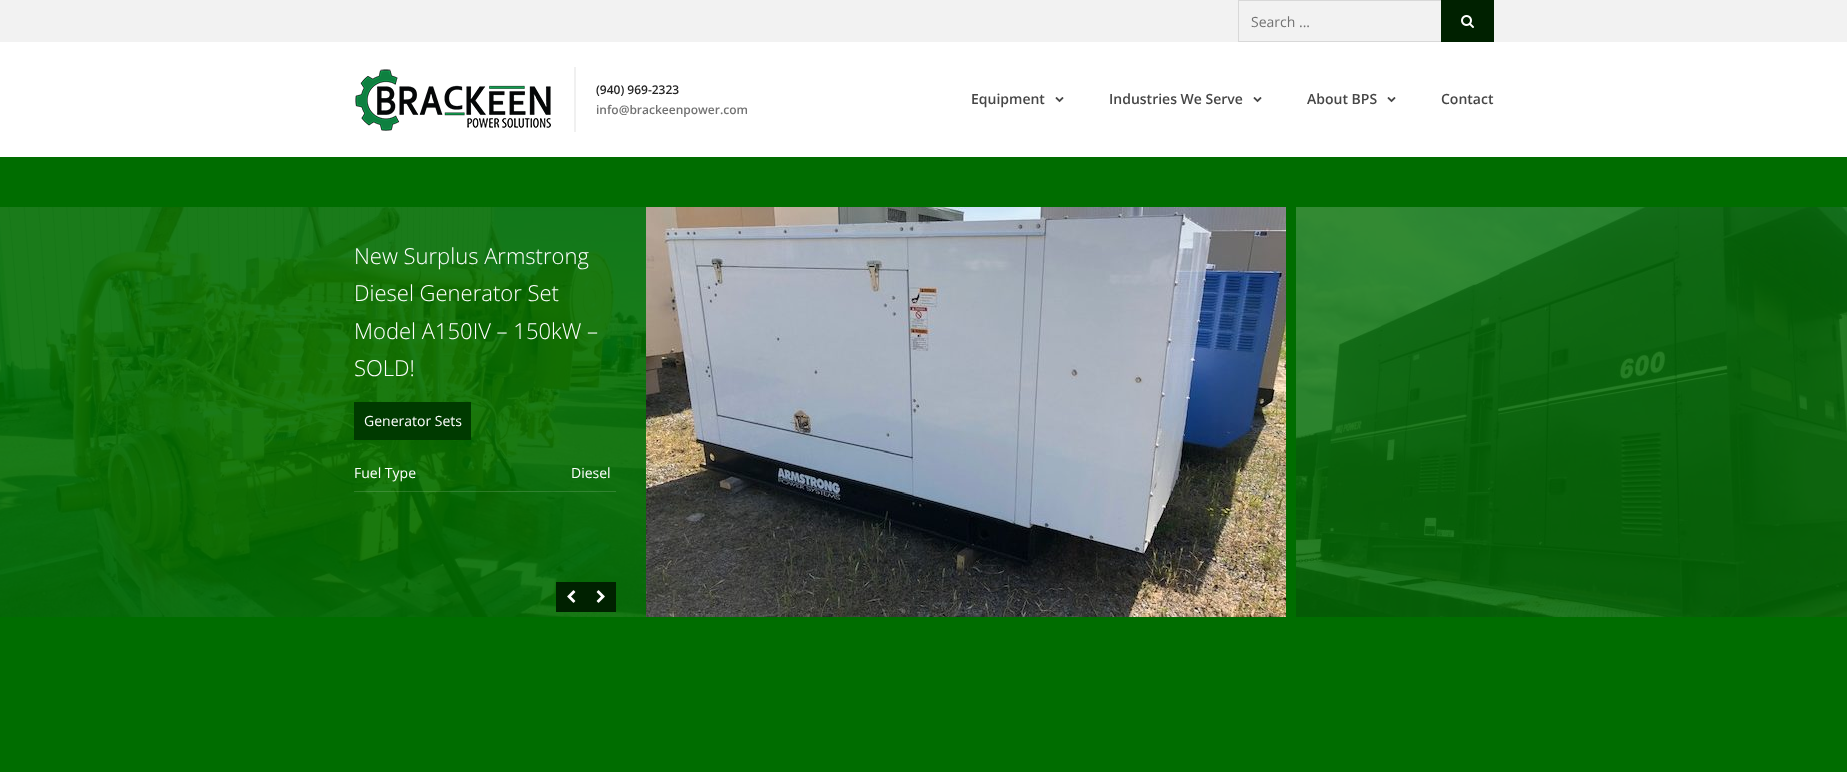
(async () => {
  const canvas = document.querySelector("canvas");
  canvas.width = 1847;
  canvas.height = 772;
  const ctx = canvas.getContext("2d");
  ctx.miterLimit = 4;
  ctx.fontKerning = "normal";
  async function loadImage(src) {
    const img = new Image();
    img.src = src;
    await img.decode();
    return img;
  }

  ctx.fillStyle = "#f2f2f2";
  ctx.fillRect(0, 0, 1847, 772);
  ctx.strokeStyle = "#d8d8d8";
  ctx.strokeRect(1238.5, 0.5, 255, 41);
  ctx.fillStyle = "#002100";
  ctx.fillRect(1441, 0, 53, 42);
  ctx.drawImage(await loadImage("img/1.png"), 1461, 15, 13, 13);
  ctx.fillStyle = "#ffffff";
  ctx.fillRect(0, 42, 1847, 115);
  ctx.drawImage(await loadImage("img/2.png"), 355, 69, 196, 62);
  ctx.fillStyle = "#f0f0f0";
  ctx.fillRect(574, 67, 2, 65);
  ctx.drawImage(await loadImage("img/3.png"), 1055, 97, 9, 6);
  ctx.drawImage(await loadImage("img/3.png"), 1253, 97, 9, 6);
  ctx.drawImage(await loadImage("img/3.png"), 1387, 97, 9, 6);
  ctx.fillStyle = "#006d00";
  ctx.fillRect(0, 157, 1847, 615);
  ctx.drawImage(await loadImage("img/4.png"), 0, 207, 646, 410);
  ctx.drawImage(await loadImage("img/5.png"), 646, 207, 640, 410);
  ctx.drawImage(await loadImage("img/6.png"), 1296, 207, 551, 410);
  for (const [x, y, w, h, color] of [
    [354, 402, 117, 38, "#003a00"],
    [354, 491, 262, 1, "rgba(255, 255, 255, 0.15)"],
    [556, 582, 60, 30, "#002100"],
  ]) {
    ctx.fillStyle = color;
    ctx.fillRect(x, y, w, h);
  }
  ctx.drawImage(await loadImage("img/7.png"), 567, 590, 9, 13);
  ctx.drawImage(await loadImage("img/8.png"), 596, 590, 9, 13);
  ctx.font = "14px Open Sans";
  ctx.fillStyle = "#727272";
  ctx.fillText("Search ...", 1251, 27);
  ctx.font = "600 12px Open Sans";
  ctx.fillStyle = "#252525";
  ctx.fillText("(940) 969-2323", 596, 94);
  ctx.fillStyle = "#727272";
  ctx.fillText("info@brackeenpower.com", 596, 114);
  ctx.font = "600 14px Open Sans";
  ctx.fillStyle = "#464646";
  for (const [text, x, y] of [
    ["Equipment", 971, 104],
    ["Industries We Serve", 1109, 104],
    ["About BPS", 1307, 104],
    ["Contact", 1441, 104],
  ]) {
    ctx.fillText(text, x, y);
  }
  ctx.font = "300 22px Open Sans";
  ctx.fillStyle = "#ffffff";
  for (const [text, x, y] of [
    ["New Surplus Armstrong", 354, 264],
    ["Diesel Generator Set", 354, 301],
    ["Model A150IV – 150kW –", 354, 339],
    ["SOLD!", 354, 376],
  ]) {
    ctx.fillText(text, x, y);
  }
  ctx.font = "14px Open Sans";
  for (const [text, x, y] of [
    ["Generator Sets", 364, 426],
    ["Fuel Type", 354, 478],
    ["Diesel", 571, 478],
  ]) {
    ctx.fillText(text, x, y);
  }
})();
